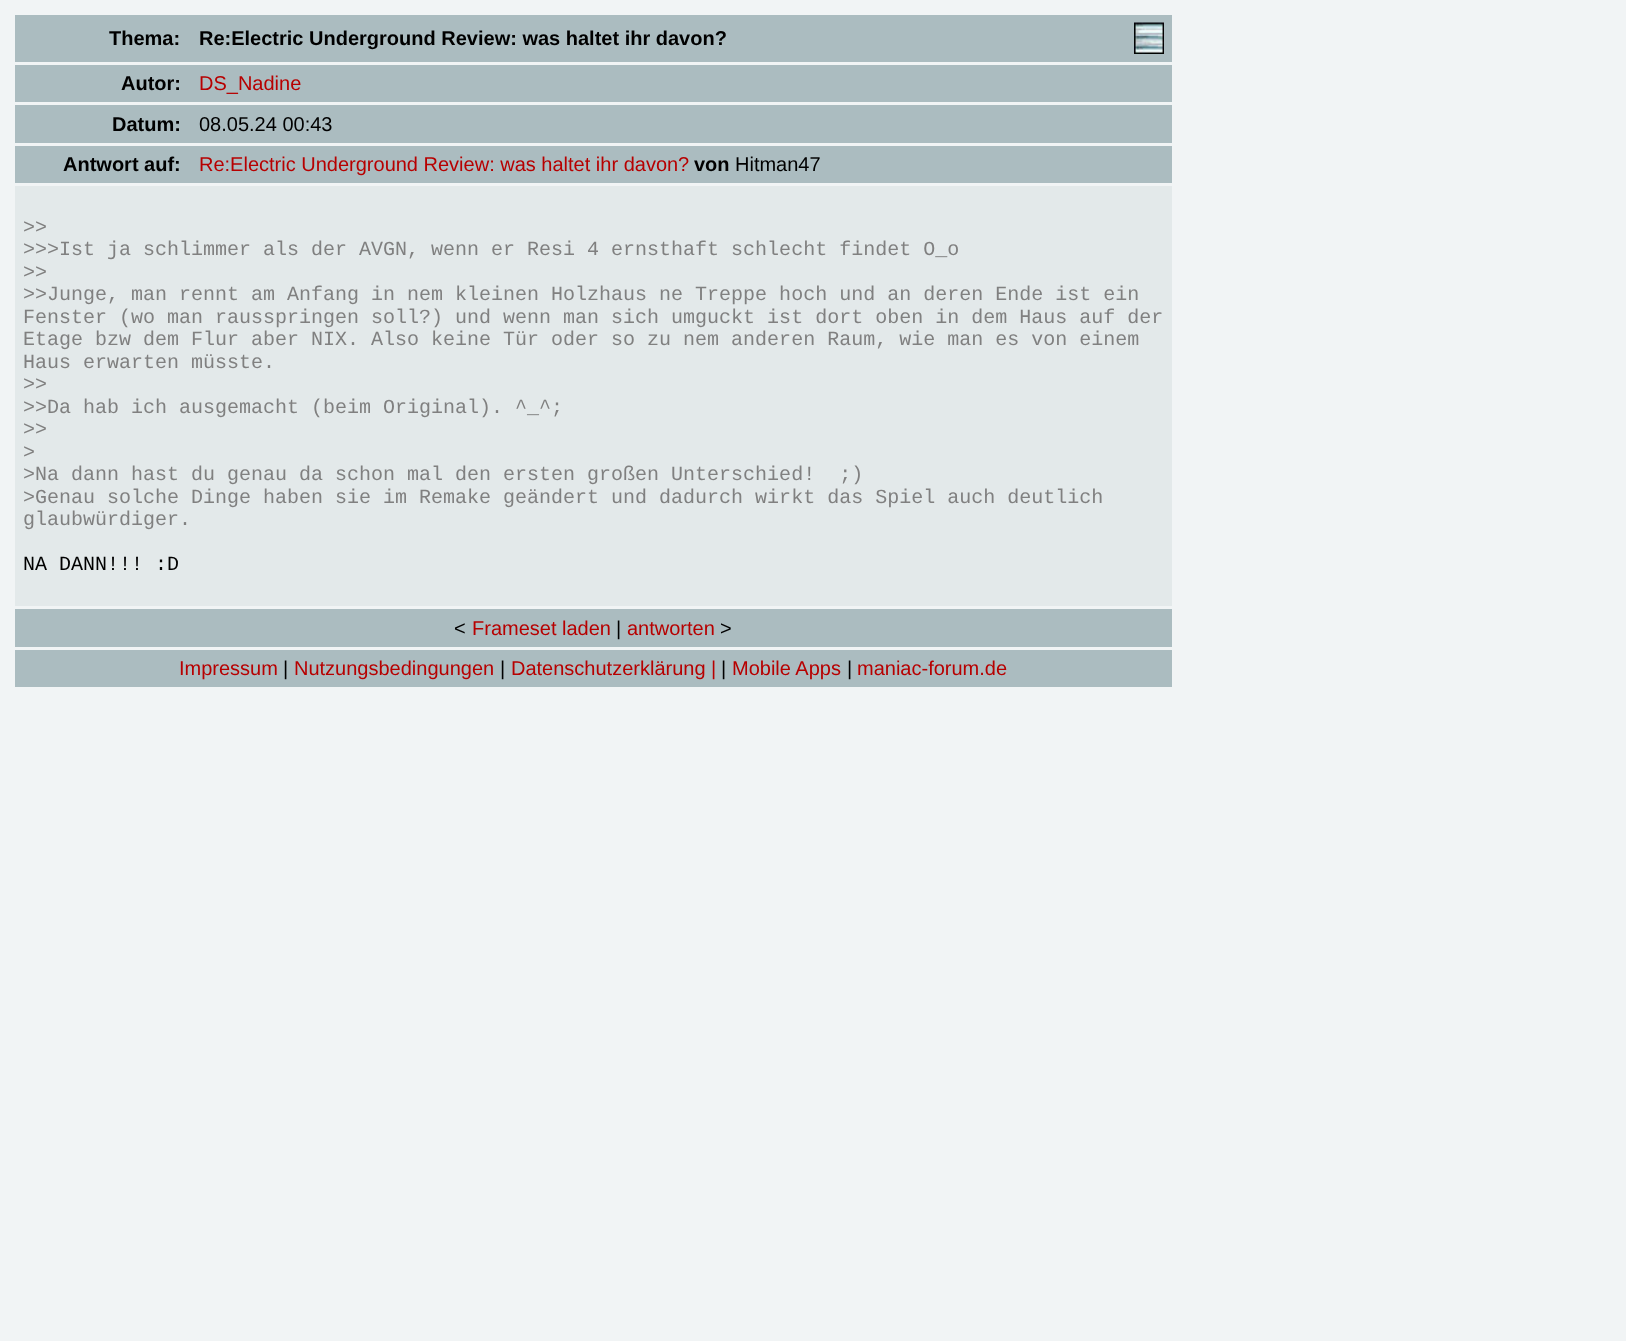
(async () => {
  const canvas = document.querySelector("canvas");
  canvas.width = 1626;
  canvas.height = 1341;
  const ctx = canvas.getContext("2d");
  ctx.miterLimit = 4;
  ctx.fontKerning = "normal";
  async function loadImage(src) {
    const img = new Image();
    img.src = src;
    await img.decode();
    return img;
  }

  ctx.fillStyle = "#f1f4f5";
  ctx.fillRect(0, 0, 1626, 1341);
  ctx.fillStyle = "#abbcc0";
  ctx.fillRect(15, 15, 1157, 47);
  ctx.drawImage(await loadImage("img/1.png"), 1134, 22, 30, 32);
  for (const [x, y, w, h, color] of [
    [15, 65, 1157, 37, "#abbcc0"],
    [15, 105, 1157, 38, "#abbcc0"],
    [15, 146, 1157, 37, "#abbcc0"],
    [15, 186, 1157, 420, "#e3e9ea"],
    [15, 609, 1157, 38, "#abbcc0"],
    [15, 650, 1157, 37, "#abbcc0"],
  ]) {
    ctx.fillStyle = color;
    ctx.fillRect(x, y, w, h);
  }
  ctx.font = "bold 20px Liberation Sans";
  ctx.fillStyle = "#000000";
  for (const [text, x, y] of [
    ["Thema:", 109, 45],
    ["Re:Electric Underground Review: was haltet ihr davon?", 199, 45],
    ["Autor:", 121, 90],
  ]) {
    ctx.fillText(text, x, y);
  }
  ctx.font = "20px Liberation Sans";
  ctx.fillStyle = "#b70000";
  ctx.fillText("DS_Nadine", 199, 90);
  ctx.font = "bold 20px Liberation Sans";
  ctx.fillStyle = "#000000";
  ctx.fillText("Datum:", 112, 131);
  ctx.font = "20px Liberation Sans";
  ctx.fillText("08.05.24 00:43", 199, 131);
  ctx.font = "bold 20px Liberation Sans";
  ctx.fillText("Antwort auf:", 63, 171);
  ctx.font = "20px Liberation Sans";
  ctx.fillStyle = "#b70000";
  ctx.fillText("Re:Electric Underground Review: was haltet ihr davon?", 199, 171);
  ctx.font = "bold 20px Liberation Sans";
  ctx.fillStyle = "#000000";
  ctx.fillText("von", 694, 171);
  ctx.font = "20px Liberation Sans";
  ctx.fillText("Hitman47", 735, 171);
  ctx.font = "20px Liberation Mono";
  ctx.fillStyle = "#808080";
  for (const [text, x, y] of [
    [">>", 23, 233],
    [">>>Ist ja schlimmer als der AVGN, wenn er Resi 4 ernsthaft schlecht findet O_o", 23, 255],
    [">>", 23, 278],
    [">>Junge, man rennt am Anfang in nem kleinen Holzhaus ne Treppe hoch und an deren Ende ist ein", 23, 300],
    ["Fenster (wo man rausspringen soll?) und wenn man sich umguckt ist dort oben in dem Haus auf der", 23, 323],
    ["Etage bzw dem Flur aber NIX. Also keine Tür oder so zu nem anderen Raum, wie man es von einem", 23, 345],
    ["Haus erwarten müsste.", 23, 368],
    [">>", 23, 390],
    [">>Da hab ich ausgemacht (beim Original). ^_^;", 23, 413],
    [">>", 23, 435],
    [">", 23, 458],
    [">Na dann hast du genau da schon mal den ersten großen Unterschied!  ;)", 23, 480],
    [">Genau solche Dinge haben sie im Remake geändert und dadurch wirkt das Spiel auch deutlich", 23, 503],
    ["glaubwürdiger.", 23, 525],
  ]) {
    ctx.fillText(text, x, y);
  }
  ctx.fillStyle = "#000000";
  ctx.fillText("NA DANN!!! :D", 23, 570);
  ctx.font = "20px Liberation Sans";
  ctx.fillText("<", 454, 635);
  ctx.fillStyle = "#b70000";
  ctx.fillText("Frameset laden", 472, 635);
  ctx.fillStyle = "#000000";
  ctx.fillText("|", 616, 635);
  ctx.fillStyle = "#b70000";
  ctx.fillText("antworten", 627, 635);
  ctx.fillStyle = "#000000";
  ctx.fillText(">", 720, 635);
  ctx.fillStyle = "#b70000";
  ctx.fillText("Impressum", 179, 675);
  ctx.fillStyle = "#000000";
  ctx.fillText("|", 283, 675);
  ctx.fillStyle = "#b70000";
  ctx.fillText("Nutzungsbedingungen", 294, 675);
  ctx.fillStyle = "#000000";
  ctx.fillText("|", 500, 675);
  ctx.fillStyle = "#b70000";
  ctx.fillText("Datenschutzerklärung |", 511, 675);
  ctx.fillStyle = "#000000";
  ctx.fillText("|", 721, 675);
  ctx.fillStyle = "#b70000";
  ctx.fillText("Mobile Apps", 732, 675);
  ctx.fillStyle = "#000000";
  ctx.fillText("|", 847, 675);
  ctx.fillStyle = "#b70000";
  ctx.fillText("maniac-forum.de", 857, 675);
})();
